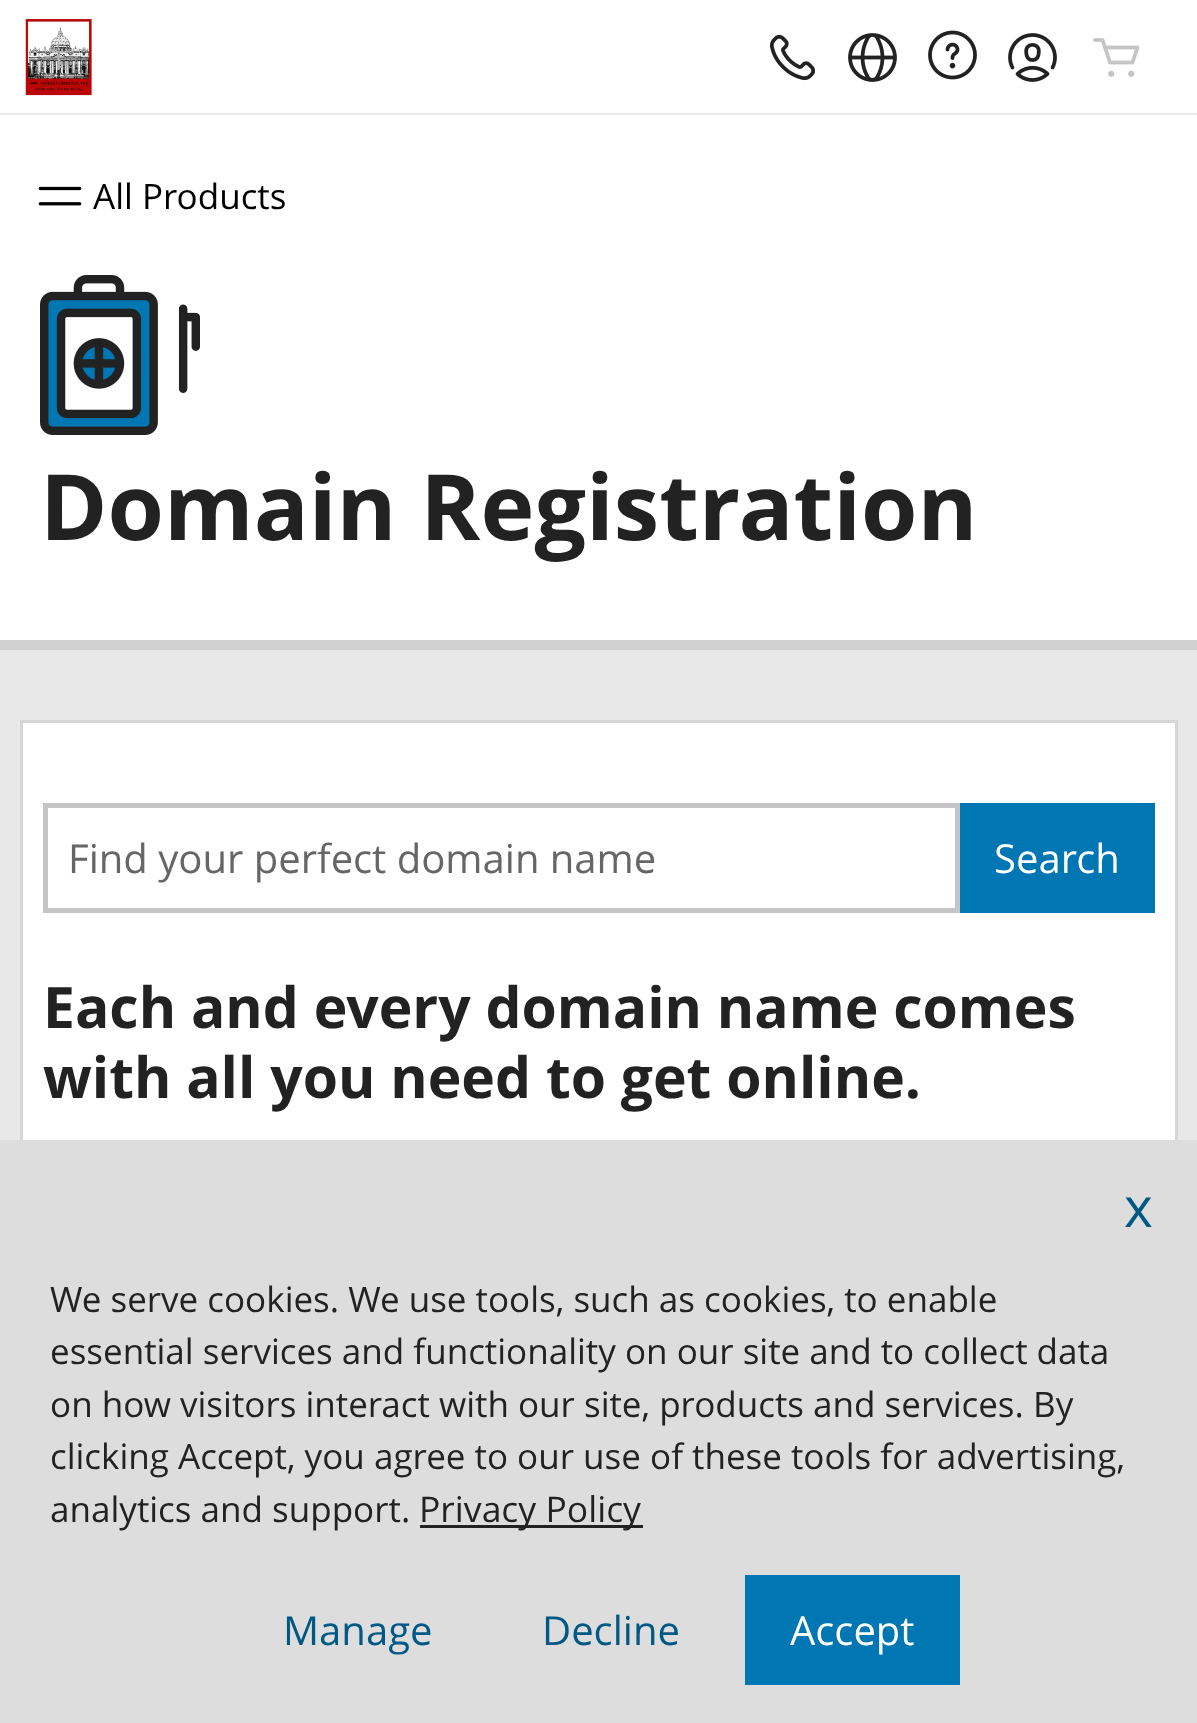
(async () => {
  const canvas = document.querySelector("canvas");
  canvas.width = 1197;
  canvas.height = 1723;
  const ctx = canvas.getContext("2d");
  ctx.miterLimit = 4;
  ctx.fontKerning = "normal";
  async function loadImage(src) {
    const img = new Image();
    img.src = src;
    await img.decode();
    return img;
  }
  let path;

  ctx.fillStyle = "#e8e8e8";
  ctx.fillRect(0, 0, 1197, 1723);
  ctx.fillStyle = "#ffffff";
  ctx.fillRect(0, 0, 1197, 113);
  ctx.drawImage(await loadImage("img/1.png"), 25, 19, 67, 77);
  ctx.drawImage(await loadImage("img/2.png"), 769, 34, 46, 47);
  ctx.drawImage(await loadImage("img/3.png"), 848, 33, 49, 49);
  ctx.drawImage(await loadImage("img/4.png"), 928, 30, 49, 50);
  ctx.drawImage(await loadImage("img/5.png"), 1008, 33, 49, 49);
  ctx.drawImage(await loadImage("img/6.png"), 1093, 38, 47, 39);
  ctx.fillRect(0, 115, 1197, 525);
  ctx.drawImage(await loadImage("img/7.png"), 38, 186, 44, 20);
  ctx.fillStyle = "#d1d1d1";
  path = new Path2D("M0 640V650H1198V285V640Z");
  ctx.fill(path);
  ctx.drawImage(await loadImage("img/8.png"), 40, 275, 160, 160);
  ctx.fillStyle = "#ffffff";
  ctx.fillRect(23, 723, 1152, 417);
  ctx.strokeStyle = "#d6d6d6";
  ctx.lineWidth = 3;
  ctx.strokeRect(21.5, 721.5, 1155, 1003);
  ctx.strokeStyle = "#c5c5c7";
  ctx.lineWidth = 5;
  ctx.strokeRect(45.5, 805.5, 912, 105);
  for (const [x, y, w, h, color] of [
    [960, 803, 195, 110, "#0076b2"],
    [0, 1140, 1197, 583, "#dddddd"],
    [420, 1525, 223, 3, "#222222"],
    [745, 1575, 215, 110, "#0076b2"],
  ]) {
    ctx.fillStyle = color;
    ctx.fillRect(x, y, w, h);
  }
  ctx.font = "35px Open Sans";
  ctx.fillStyle = "#000000";
  ctx.fillText("All Products", 93, 209);
  ctx.font = "bold 91.25px Open Sans";
  ctx.fillStyle = "#222222";
  ctx.fillText("Domain Registration", 40, 540);
  ctx.font = "40px Open Sans";
  ctx.fillStyle = "#666666";
  ctx.fillText("Find your perfect domain name", 68, 873);
  ctx.fillStyle = "#ffffff";
  ctx.fillText("Search", 994, 873);
  ctx.font = "bold 57px Open Sans";
  ctx.fillStyle = "#222222";
  ctx.fillText("Each and every domain name comes", 43, 1028);
  ctx.fillText("with all you need to get online.", 43, 1098);
  ctx.font = "55px Open Sans";
  ctx.fillStyle = "#005884";
  ctx.fillText("x", 1124, 1227);
  ctx.font = "35px Open Sans";
  ctx.fillStyle = "#222222";
  for (const [text, x, y] of [
    ["We serve cookies. We use tools, such as cookies, to enable", 50, 1312],
    ["essential services and functionality on our site and to collect data", 50, 1364],
    ["on how visitors interact with our site, products and services. By", 50, 1417],
    ["clicking Accept, you agree to our use of these tools for advertising,", 50, 1469],
    ["analytics and support.", 50, 1522],
  ]) {
    ctx.fillText(text, x, y);
  }
  ctx.font = "35.5px Open Sans";
  ctx.fillText("Privacy Policy", 419, 1522);
  ctx.font = "40px Open Sans";
  ctx.fillStyle = "#005884";
  ctx.fillText("Manage", 283, 1645);
  ctx.fillText("Decline", 542, 1645);
  ctx.fillStyle = "#ffffff";
  ctx.fillText("Accept", 790, 1645);
})();
